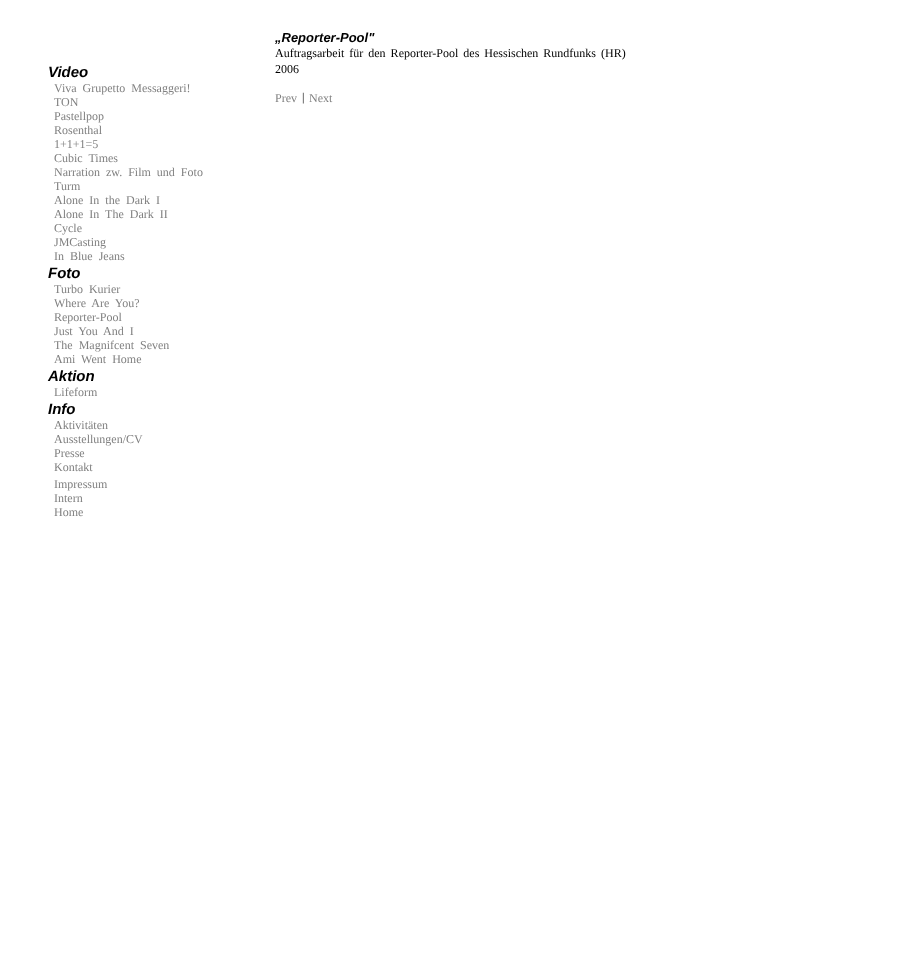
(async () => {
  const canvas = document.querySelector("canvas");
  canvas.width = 898;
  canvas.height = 956;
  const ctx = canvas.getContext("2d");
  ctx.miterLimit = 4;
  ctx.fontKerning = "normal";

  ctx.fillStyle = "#ffffff";
  ctx.fillRect(0, 0, 898, 956);
  ctx.font = "italic bold 15px Liberation Sans";
  ctx.fillStyle = "#000000";
  ctx.fillText("Video", 48, 77);
  ctx.wordSpacing = "3px";
  ctx.font = "12px Liberation Serif";
  ctx.fillStyle = "#808080";
  ctx.fillText("Viva Grupetto Messaggeri!", 54, 92);
  ctx.wordSpacing = "0px";
  for (const [text, x, y] of [
    ["TON", 54, 106],
    ["Pastellpop", 54, 120],
    ["Rosenthal", 54, 134],
    ["1+1+1=5", 54, 148],
  ]) {
    ctx.fillText(text, x, y);
  }
  ctx.wordSpacing = "3px";
  ctx.fillText("Cubic Times", 54, 162);
  ctx.fillText("Narration zw. Film und Foto", 54, 176);
  ctx.wordSpacing = "0px";
  ctx.fillText("Turm", 54, 190);
  ctx.wordSpacing = "3px";
  ctx.fillText("Alone In the Dark I", 54, 204);
  ctx.fillText("Alone In The Dark II", 54, 218);
  ctx.wordSpacing = "0px";
  ctx.fillText("Cycle", 54, 232);
  ctx.fillText("JMCasting", 54, 246);
  ctx.wordSpacing = "3px";
  ctx.fillText("In Blue Jeans", 54, 260);
  ctx.wordSpacing = "0px";
  ctx.font = "italic bold 15px Liberation Sans";
  ctx.fillStyle = "#000000";
  ctx.fillText("Foto", 48, 278);
  ctx.wordSpacing = "3px";
  ctx.font = "12px Liberation Serif";
  ctx.fillStyle = "#808080";
  ctx.fillText("Turbo Kurier", 54, 293);
  ctx.fillText("Where Are You?", 54, 307);
  ctx.wordSpacing = "0px";
  ctx.fillText("Reporter-Pool", 54, 321);
  ctx.wordSpacing = "3px";
  for (const [text, x, y] of [
    ["Just You And I", 54, 335],
    ["The Magnifcent Seven", 54, 349],
    ["Ami Went Home", 54, 363],
  ]) {
    ctx.fillText(text, x, y);
  }
  ctx.wordSpacing = "0px";
  ctx.font = "italic bold 15px Liberation Sans";
  ctx.fillStyle = "#000000";
  ctx.fillText("Aktion", 48, 381);
  ctx.font = "12px Liberation Serif";
  ctx.fillStyle = "#808080";
  ctx.fillText("Lifeform", 54, 396);
  ctx.font = "italic bold 15px Liberation Sans";
  ctx.fillStyle = "#000000";
  ctx.fillText("Info", 48, 414);
  ctx.font = "12px Liberation Serif";
  ctx.fillStyle = "#808080";
  for (const [text, x, y] of [
    ["Aktivitäten", 54, 429],
    ["Ausstellungen/CV", 54, 443],
    ["Presse", 54, 457],
    ["Kontakt", 54, 471],
    ["Impressum", 54, 488],
    ["Intern", 54, 502],
    ["Home", 54, 516],
  ]) {
    ctx.fillText(text, x, y);
  }
  ctx.font = "italic bold 13px Liberation Sans";
  ctx.fillStyle = "#000000";
  ctx.fillText("„Reporter-Pool\"", 275, 42);
  ctx.wordSpacing = "2px";
  ctx.font = "12px Liberation Serif";
  ctx.fillText("Auftragsarbeit für den Reporter-Pool des Hessischen Rundfunks (HR)", 275, 57);
  ctx.wordSpacing = "0px";
  ctx.fillText("2006", 275, 73);
  ctx.fillStyle = "#808080";
  ctx.fillText("Prev", 275, 102);
  ctx.fillStyle = "#000000";
  ctx.fillText("|", 302, 101);
  ctx.fillStyle = "#808080";
  ctx.fillText("Next", 309, 102);
})();
